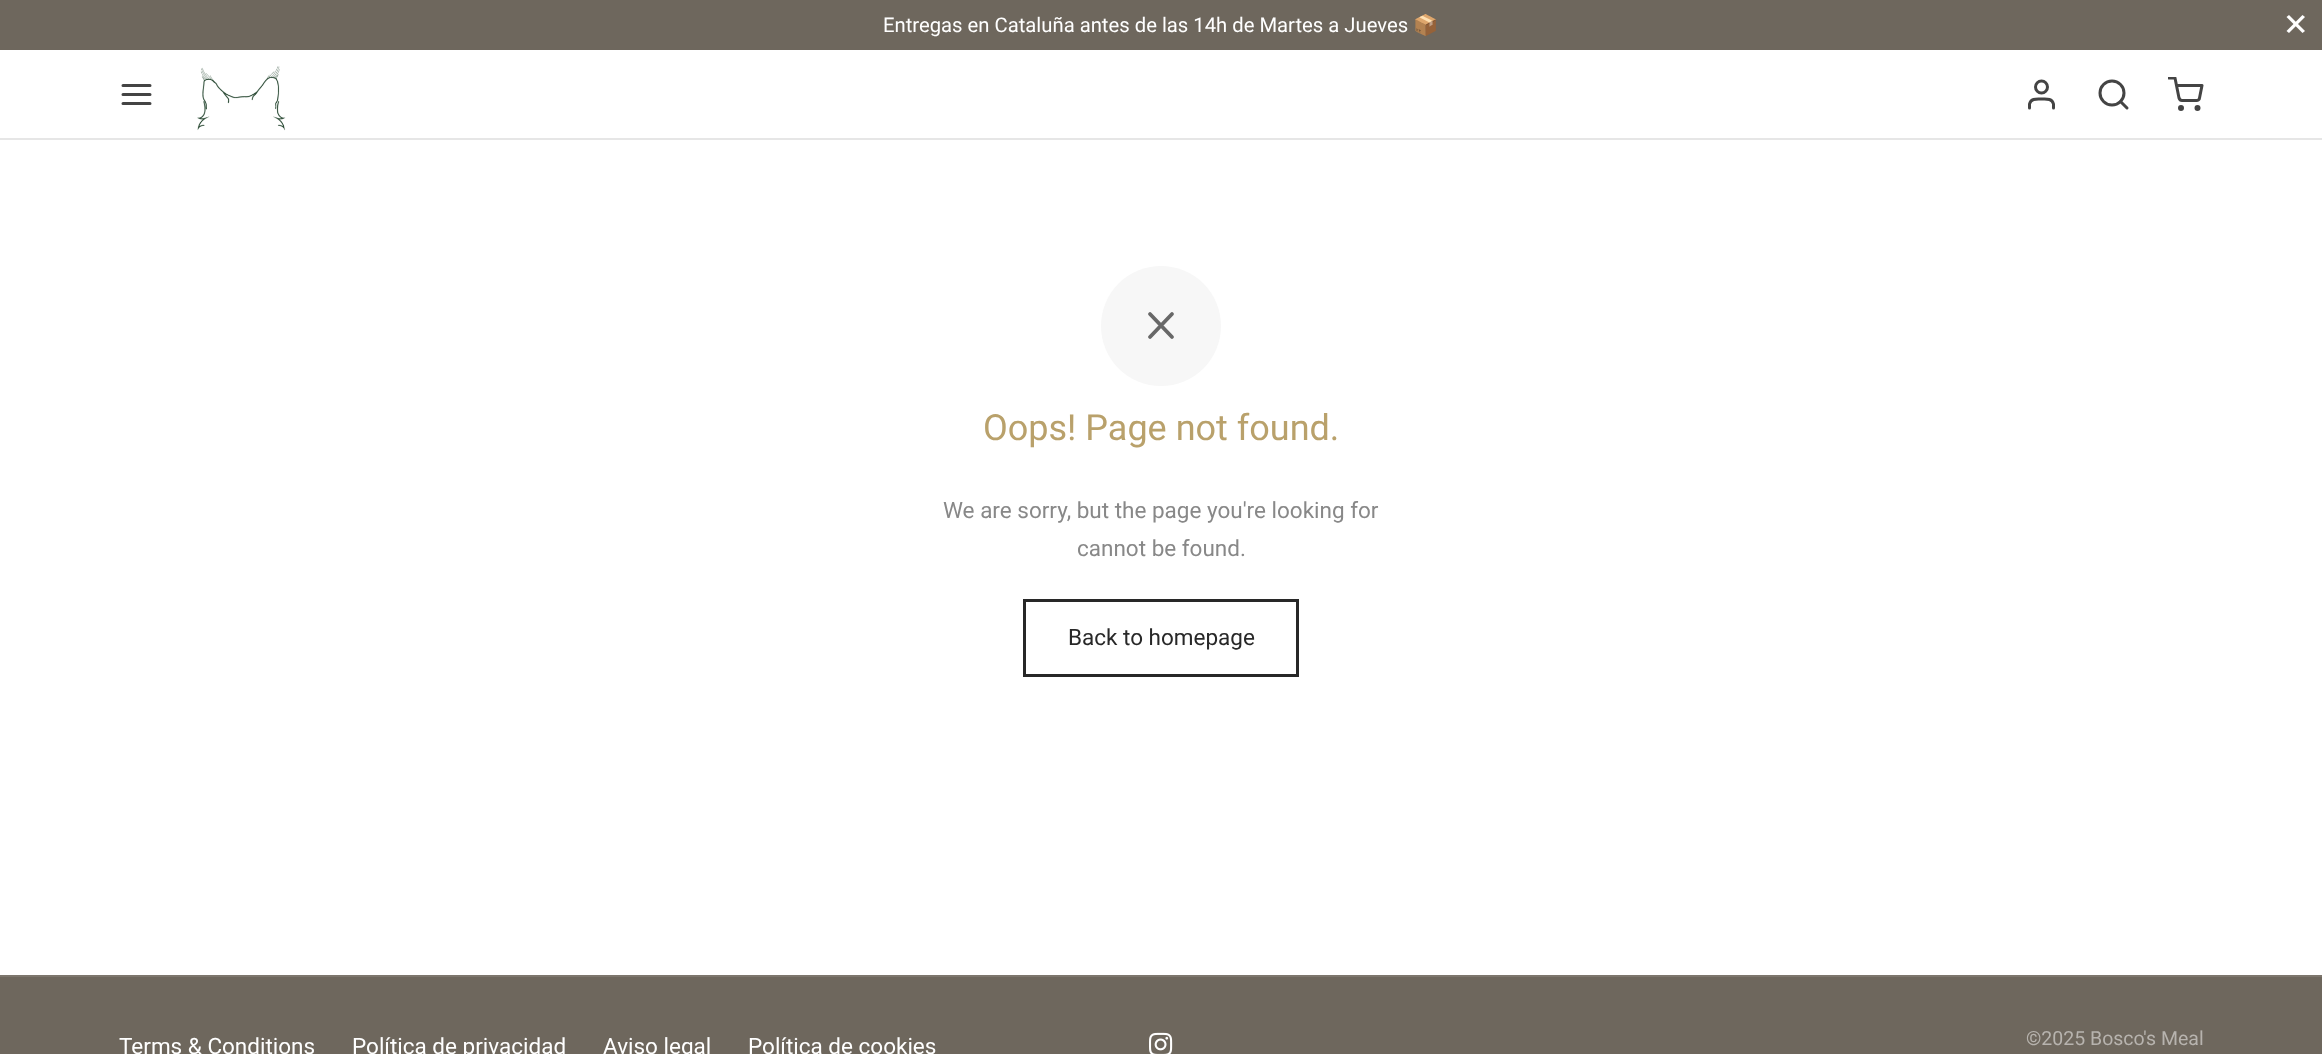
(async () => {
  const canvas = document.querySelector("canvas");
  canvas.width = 2322;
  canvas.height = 1054;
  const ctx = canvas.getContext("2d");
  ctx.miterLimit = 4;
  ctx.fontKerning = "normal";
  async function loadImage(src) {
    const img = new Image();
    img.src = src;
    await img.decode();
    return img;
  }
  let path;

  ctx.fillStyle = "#ffffff";
  ctx.fillRect(0, 0, 2322, 1054);
  ctx.fillStyle = "#6e675d";
  ctx.fillRect(0, 0, 2322, 50);
  ctx.fillStyle = "#ffffff";
  path = new Path2D("M2289 15L2305 31L2302.5 33L2286.5 17Z");
  ctx.fill(path);
  path = new Path2D("M2286.5 31L2302.5 15L2305 17L2289 33Z");
  ctx.fill(path);
  path = new Path2D("M123 94.5H150M123 85.5H150M123 103.5H150");
  ctx.strokeStyle = "#444444";
  ctx.lineWidth = 3;
  ctx.lineCap = "round";
  ctx.lineJoin = "round";
  ctx.stroke(path);
  ctx.drawImage(await loadImage("img/1.png"), 197, 66, 89, 65);
  path = new Path2D("M2053.5 108V104C2052 98 2046 99 2041.5 99C2037 99 2031 98 2029.5 104V108");
  ctx.stroke(path);
  ctx.beginPath();
  ctx.arc(2041.5, 87, 6, 0, Math.PI * 2);
  ctx.stroke();
  ctx.beginPath();
  ctx.arc(2112, 93, 12, 0, Math.PI * 2);
  ctx.stroke();
  path = new Path2D("M2127 108L2120.5 101.5");
  ctx.stroke(path);
  ctx.beginPath();
  ctx.arc(2181, 108, 1.5, 0, Math.PI * 2);
  ctx.stroke();
  ctx.beginPath();
  ctx.arc(2197.5, 108, 1.5, 0, Math.PI * 2);
  ctx.stroke();
  ctx.save();
  ctx.beginPath();
  ctx.rect(2168, 77, 36, 36);
  ctx.clip();
  path = new Path2D("M2169 78H2175L2179 98C2179.5 99.5 2180.5 100.5 2182 100.5H2196.5C2198 100.5 2199.5 99.5 2199.5 98L2202 85.5H2176.5");
  ctx.stroke(path);
  ctx.restore();
  ctx.fillStyle = "#e6e6e6";
  ctx.fillRect(0, 138, 2322, 2);
  ctx.fillStyle = "#f7f7f7";
  ctx.beginPath();
  ctx.arc(1161, 326, 60, 0, Math.PI * 2);
  ctx.fill();
  path = new Path2D("M1172 314L1150 337M1150 314L1172 337");
  ctx.strokeStyle = "#686868";
  ctx.lineWidth = 3.8;
  ctx.stroke(path);
  ctx.strokeStyle = "#282828";
  ctx.lineWidth = 3;
  ctx.lineJoin = "miter";
  ctx.strokeRect(1024.5, 600.5, 273, 75);
  ctx.fillStyle = "#6e675d";
  ctx.fillRect(0, 977, 2322, 77);
  ctx.fillStyle = "#7d766d";
  ctx.fillRect(0, 975, 2322, 2);
  ctx.drawImage(await loadImage("img/2.png"), 1149, 1032, 24, 22);
  ctx.font = "20.25px Roboto";
  ctx.fillStyle = "#ffffff";
  ctx.fillText("Entregas en Cataluña antes de las 14h de Martes a Jueves", 883, 32);
  ctx.font = "20.25px Noto Color Emoji";
  ctx.fillText("📦", 1413, 32);
  ctx.font = "36px Roboto";
  ctx.fillStyle = "#b9a16b";
  ctx.fillText("Oops! Page not found.", 983, 440);
  ctx.font = "22.5px Roboto";
  ctx.fillStyle = "#888888";
  ctx.fillText("We are sorry, but the page you're looking for", 943, 518);
  ctx.fillText("cannot be found.", 1077, 556);
  ctx.fillStyle = "#282828";
  ctx.fillText("Back to homepage", 1068, 645);
  ctx.fillStyle = "#ffffff";
  for (const [text, x, y] of [
    ["Terms & Conditions", 119, 1054],
    ["Política de privacidad", 352, 1054],
    ["Aviso legal", 603, 1054],
    ["Política de cookies", 748, 1054],
  ]) {
    ctx.fillText(text, x, y);
  }
  ctx.font = "19.5px Roboto";
  ctx.fillStyle = "#b7b3ae";
  ctx.fillText("©2025 Bosco's Meal", 2026, 1045);
})();
